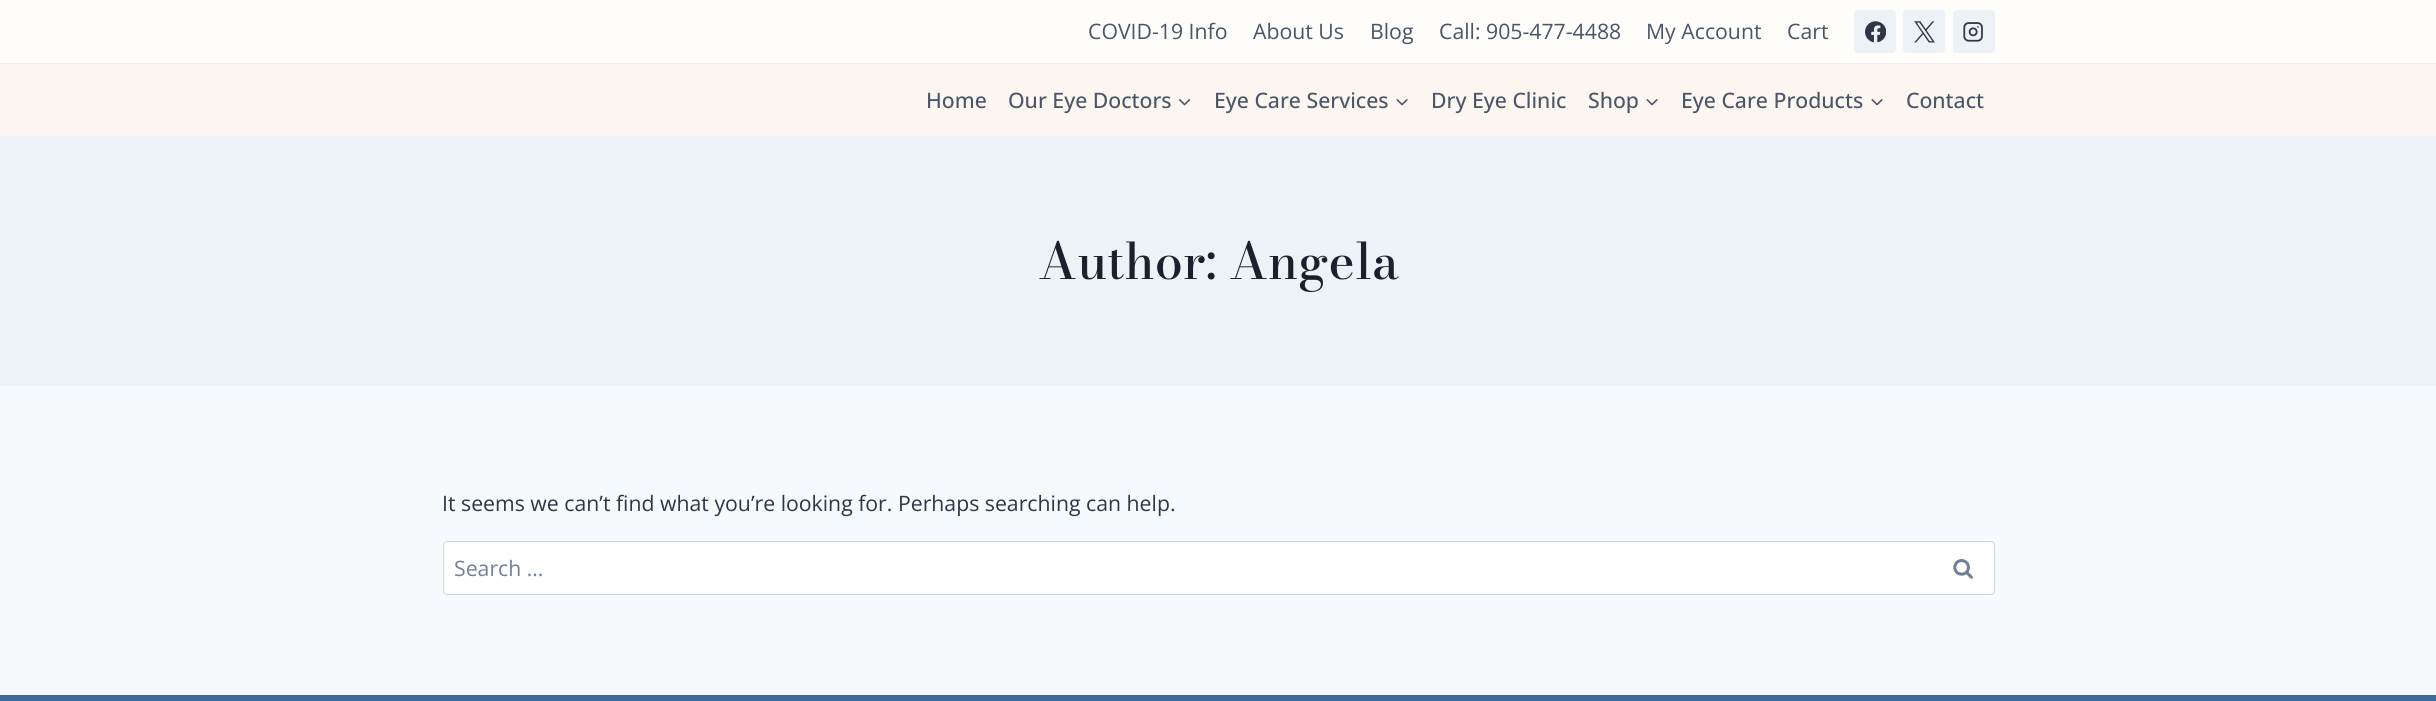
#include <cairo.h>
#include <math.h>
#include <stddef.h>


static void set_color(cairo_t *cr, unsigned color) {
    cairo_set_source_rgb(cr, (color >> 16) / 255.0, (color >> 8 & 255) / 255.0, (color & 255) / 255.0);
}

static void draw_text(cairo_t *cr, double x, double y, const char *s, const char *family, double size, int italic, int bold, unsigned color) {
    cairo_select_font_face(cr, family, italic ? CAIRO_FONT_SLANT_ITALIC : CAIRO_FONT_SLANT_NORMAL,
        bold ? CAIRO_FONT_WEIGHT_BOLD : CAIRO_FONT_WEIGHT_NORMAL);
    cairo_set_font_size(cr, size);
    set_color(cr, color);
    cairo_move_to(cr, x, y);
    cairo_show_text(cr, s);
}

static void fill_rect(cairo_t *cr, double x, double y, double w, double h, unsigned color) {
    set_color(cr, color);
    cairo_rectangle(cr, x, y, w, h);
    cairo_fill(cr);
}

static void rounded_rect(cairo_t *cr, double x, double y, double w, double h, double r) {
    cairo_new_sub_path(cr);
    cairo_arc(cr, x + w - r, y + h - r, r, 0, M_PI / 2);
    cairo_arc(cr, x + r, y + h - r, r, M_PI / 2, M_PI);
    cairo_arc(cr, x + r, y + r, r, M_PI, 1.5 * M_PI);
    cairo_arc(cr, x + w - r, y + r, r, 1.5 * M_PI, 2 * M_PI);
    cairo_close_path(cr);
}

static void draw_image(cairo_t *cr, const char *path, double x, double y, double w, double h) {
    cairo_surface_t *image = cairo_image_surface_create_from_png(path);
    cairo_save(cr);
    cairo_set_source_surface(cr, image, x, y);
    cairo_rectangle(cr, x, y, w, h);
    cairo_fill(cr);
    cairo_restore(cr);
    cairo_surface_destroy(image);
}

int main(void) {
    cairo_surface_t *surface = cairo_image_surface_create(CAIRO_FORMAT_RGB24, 2436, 701);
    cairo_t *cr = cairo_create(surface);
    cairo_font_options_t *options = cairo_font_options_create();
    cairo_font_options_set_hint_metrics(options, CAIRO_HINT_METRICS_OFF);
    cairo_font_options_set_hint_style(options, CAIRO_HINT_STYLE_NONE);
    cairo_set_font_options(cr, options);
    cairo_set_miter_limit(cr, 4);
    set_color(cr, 0xF7FAFC);
    cairo_paint(cr);
    fill_rect(cr, 0, 0, 2436, 63, 0xFEFDF9);
    draw_text(cr, 1088, 39, "COVID-19 Info", "Open Sans", 21.25, 0, 0, 0x4A5568);
    draw_text(cr, 1253, 39, "About Us", "Open Sans", 21.25, 0, 0, 0x4A5568);
    draw_text(cr, 1370, 39, "Blog", "Open Sans", 21.25, 0, 0, 0x4A5568);
    draw_text(cr, 1439, 39, "Call: 905-477-4488", "Open Sans", 21.25, 0, 0, 0x4A5568);
    draw_text(cr, 1646, 39, "My Account", "Open Sans", 21.25, 0, 0, 0x4A5568);
    draw_text(cr, 1787, 39, "Cart", "Open Sans", 21.25, 0, 0, 0x4A5568);
    set_color(cr, 0xEDF2F7);
    rounded_rect(cr, 1854, 10, 42, 43, 4);
    cairo_fill(cr);
    draw_image(cr, "assets/img1.png", 1865, 21, 21, 22);
    rounded_rect(cr, 1903, 10, 42, 43, 4);
    cairo_fill(cr);
    draw_image(cr, "assets/img2.png", 1914, 21, 21, 22);
    rounded_rect(cr, 1953, 10, 42, 43, 4);
    cairo_fill(cr);
    draw_image(cr, "assets/img3.png", 1963, 22, 20, 20);
    fill_rect(cr, 0, 64, 2436, 72, 0xFBF6F0);
    fill_rect(cr, 0, 63, 2436, 1, 0xEDF2F7);
    draw_text(cr, 926, 108, "Home", "Open Sans Medium", 21.25, 0, 0, 0x4A5568);
    draw_text(cr, 1008, 108, "Our Eye Doctors", "Open Sans Medium", 21.25, 0, 0, 0x4A5568);
    draw_image(cr, "assets/img4.png", 1179, 99, 12, 7);
    draw_text(cr, 1214, 108, "Eye Care Services", "Open Sans Medium", 21.25, 0, 0, 0x4A5568);
    draw_image(cr, "assets/img5.png", 1396, 99, 12, 7);
    draw_text(cr, 1431, 108, "Dry Eye Clinic", "Open Sans Medium", 21.25, 0, 0, 0x4A5568);
    draw_text(cr, 1588, 108, "Shop", "Open Sans Medium", 21.25, 0, 0, 0x4A5568);
    draw_image(cr, "assets/img5.png", 1646, 99, 12, 7);
    draw_text(cr, 1681, 108, "Eye Care Products", "Open Sans Medium", 21.25, 0, 0, 0x4A5568);
    draw_image(cr, "assets/img5.png", 1871, 99, 12, 7);
    draw_text(cr, 1906, 108, "Contact", "Open Sans Medium", 21.25, 0, 0, 0x4A5568);
    fill_rect(cr, 0, 136, 2436, 250, 0xEDF2F7);
    draw_text(cr, 1038, 279, "Author: Angela", "Bodoni Moda Medium", 50, 0, 0, 0x1A202C);
    draw_text(cr, 442, 511, "It seems we can’t find what you’re looking for. Perhaps searching can help.", "Open Sans", 21.25, 0, 0, 0x2D3748);
    set_color(cr, 0xFFFFFF);
    rounded_rect(cr, 443.5, 541.5, 1551, 53, 3.5);
    cairo_fill_preserve(cr);
    set_color(cr, 0xCBD5E0);
    cairo_set_line_width(cr, 1);
    cairo_stroke(cr);
    draw_text(cr, 454, 576, "Search …", "Open Sans", 21.25, 0, 0, 0x718096);
    draw_image(cr, "assets/img6.png", 1953, 559, 20, 20);
    fill_rect(cr, 0, 695, 2436, 6, 0x3F6A97);
    cairo_surface_write_to_png(surface, "output.png");
    cairo_font_options_destroy(options);
    cairo_destroy(cr);
    cairo_surface_destroy(surface);
    return 0;
}
